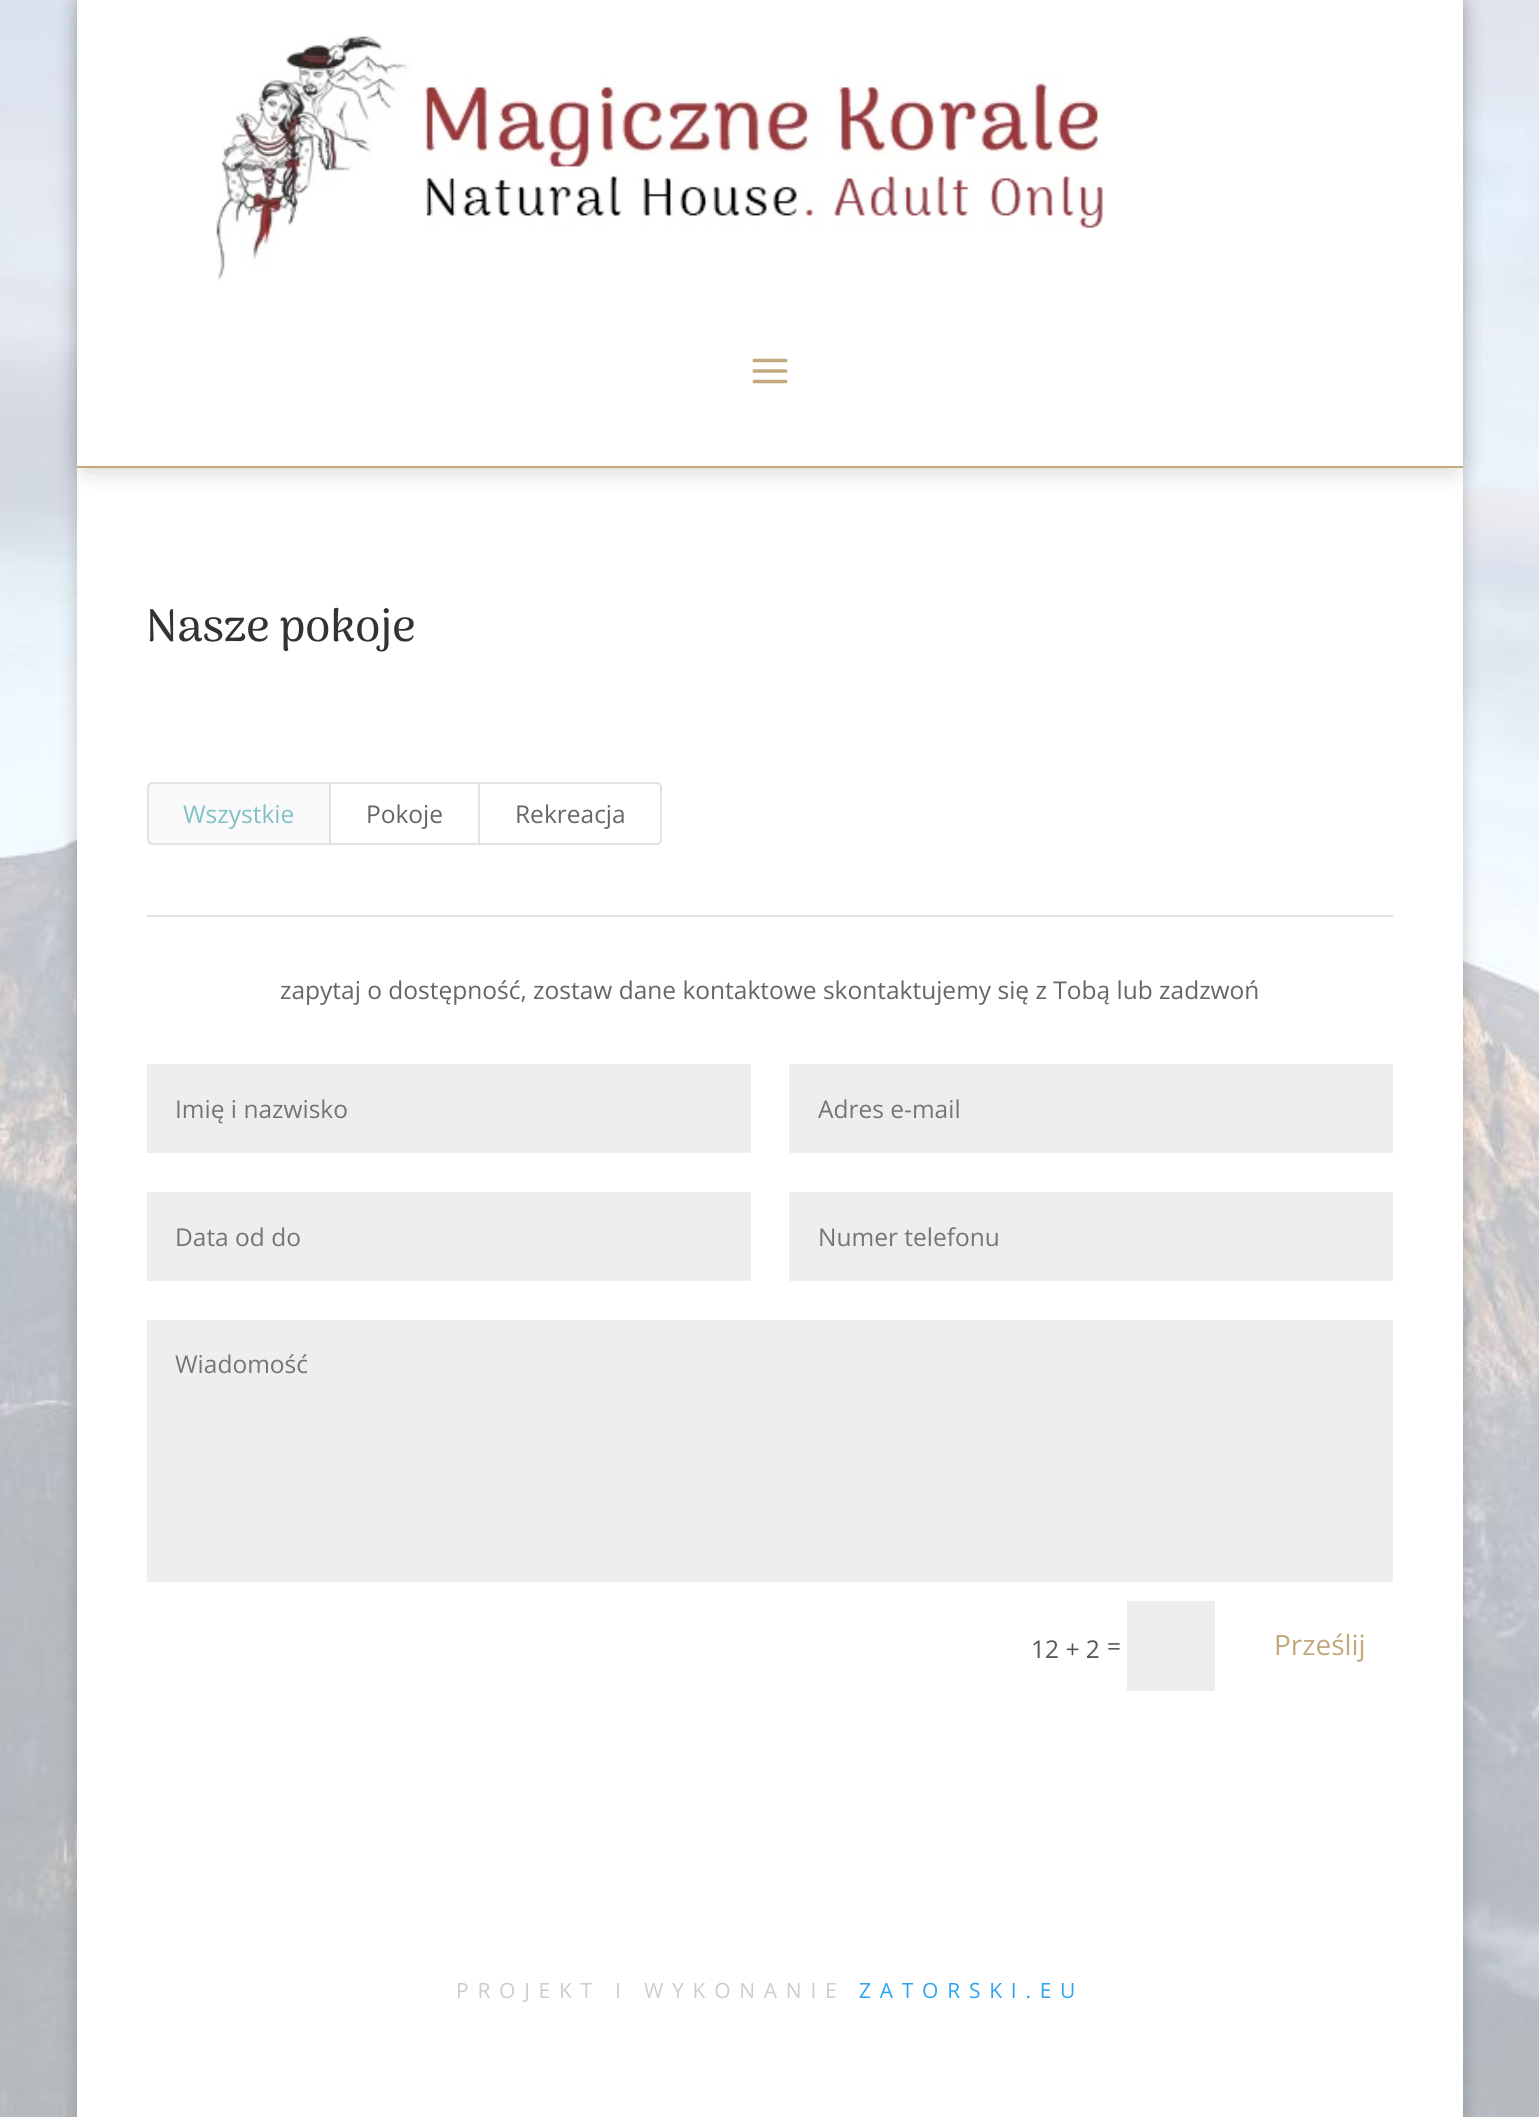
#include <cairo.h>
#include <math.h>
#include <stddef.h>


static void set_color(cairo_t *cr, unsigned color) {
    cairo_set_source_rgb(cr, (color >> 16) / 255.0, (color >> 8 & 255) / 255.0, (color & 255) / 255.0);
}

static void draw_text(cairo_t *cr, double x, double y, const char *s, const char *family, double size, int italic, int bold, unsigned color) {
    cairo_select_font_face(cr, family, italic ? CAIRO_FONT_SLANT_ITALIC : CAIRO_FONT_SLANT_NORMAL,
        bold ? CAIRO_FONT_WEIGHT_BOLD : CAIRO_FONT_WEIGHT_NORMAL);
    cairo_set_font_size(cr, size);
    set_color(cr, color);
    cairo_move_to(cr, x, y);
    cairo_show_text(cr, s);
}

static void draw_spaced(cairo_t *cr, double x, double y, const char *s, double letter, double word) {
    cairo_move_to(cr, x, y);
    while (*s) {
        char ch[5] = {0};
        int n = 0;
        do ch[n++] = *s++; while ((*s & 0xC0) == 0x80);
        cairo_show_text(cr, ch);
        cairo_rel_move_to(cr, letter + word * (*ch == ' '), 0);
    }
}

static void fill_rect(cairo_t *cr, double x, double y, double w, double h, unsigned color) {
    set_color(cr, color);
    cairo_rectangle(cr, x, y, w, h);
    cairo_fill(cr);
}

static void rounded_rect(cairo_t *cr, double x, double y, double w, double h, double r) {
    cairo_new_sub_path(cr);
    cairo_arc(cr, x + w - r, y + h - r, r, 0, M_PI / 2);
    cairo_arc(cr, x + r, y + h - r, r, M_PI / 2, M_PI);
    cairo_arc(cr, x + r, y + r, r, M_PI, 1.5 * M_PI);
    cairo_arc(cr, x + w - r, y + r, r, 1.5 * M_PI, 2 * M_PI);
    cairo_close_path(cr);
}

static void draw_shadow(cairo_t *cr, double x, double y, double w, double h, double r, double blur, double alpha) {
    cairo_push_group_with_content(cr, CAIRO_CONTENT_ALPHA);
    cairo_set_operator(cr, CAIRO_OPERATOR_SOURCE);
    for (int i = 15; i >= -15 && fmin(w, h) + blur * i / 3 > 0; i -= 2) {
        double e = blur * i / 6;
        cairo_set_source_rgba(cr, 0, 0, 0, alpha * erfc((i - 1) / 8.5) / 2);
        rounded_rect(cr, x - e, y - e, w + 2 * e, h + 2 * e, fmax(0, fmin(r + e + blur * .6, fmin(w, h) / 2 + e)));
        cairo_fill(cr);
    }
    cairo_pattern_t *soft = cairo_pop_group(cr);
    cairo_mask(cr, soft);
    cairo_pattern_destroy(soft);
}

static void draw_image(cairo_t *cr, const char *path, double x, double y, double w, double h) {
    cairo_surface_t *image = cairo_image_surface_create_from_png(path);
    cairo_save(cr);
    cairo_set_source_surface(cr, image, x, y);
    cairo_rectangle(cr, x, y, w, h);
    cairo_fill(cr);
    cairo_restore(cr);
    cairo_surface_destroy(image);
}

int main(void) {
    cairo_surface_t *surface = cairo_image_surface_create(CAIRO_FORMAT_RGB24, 1539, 2117);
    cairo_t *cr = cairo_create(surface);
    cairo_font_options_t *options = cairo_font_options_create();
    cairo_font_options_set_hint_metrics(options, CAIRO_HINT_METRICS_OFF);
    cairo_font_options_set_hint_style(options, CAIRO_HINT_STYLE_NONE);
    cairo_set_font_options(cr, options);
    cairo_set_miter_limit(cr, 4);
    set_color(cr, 0xFFFFFF);
    cairo_paint(cr);
    draw_image(cr, "assets/img1.png", 0, 0, 1539, 2117);
    set_color(cr, 0x000000);
    draw_shadow(cr, 77, 0, 1386, 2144, 0, 9, 0.2);
    fill_rect(cr, 77, 468, 1386, 1649, 0xFFFFFF);
    set_color(cr, 0x000000);
    draw_shadow(cr, 88, 16, 1365, 446, 0, 16, 0.3);
    fill_rect(cr, 77, 0, 1386, 466, 0xFFFFFF);
    fill_rect(cr, 77, 466, 1386, 2, 0xC1A87D);
    draw_image(cr, "assets/img2.png", 216, 36, 887, 245);
    draw_image(cr, "assets/img3.png", 752, 358, 36, 26);
    draw_text(cr, 146, 641, "Nasze pokoje", "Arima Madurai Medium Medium", 45.5, 0, 0, 0x333333);
    set_color(cr, 0xF9F9F9);
    cairo_new_path(cr);
    cairo_move_to(cr, 152, 783);
    cairo_line_to(cr, 330, 783);
    cairo_line_to(cr, 330, 844);
    cairo_line_to(cr, 152, 844);
    cairo_curve_to(cr, 150, 844, 148, 842, 148, 840);
    cairo_line_to(cr, 148, 787);
    cairo_curve_to(cr, 148, 785, 150, 783, 152, 783);
    cairo_close_path(cr);
    cairo_fill_preserve(cr);
    set_color(cr, 0xE2E2E2);
    cairo_stroke(cr);
    draw_text(cr, 183, 823, "Wszystkie", "Open Sans", 24.5, 0, 0, 0x82C0C7);
    cairo_rectangle(cr, 330, 783, 149, 61);
    set_color(cr, 0xE2E2E2);
    cairo_stroke(cr);
    draw_text(cr, 366, 823, "Pokoje", "Open Sans", 24.5, 0, 0, 0x666666);
    set_color(cr, 0xFFFFFF);
    cairo_new_path(cr);
    cairo_move_to(cr, 479, 783);
    cairo_line_to(cr, 657, 783);
    cairo_curve_to(cr, 659, 783, 661, 785, 661, 787);
    cairo_line_to(cr, 661, 840);
    cairo_curve_to(cr, 661, 842, 659, 844, 657, 844);
    cairo_line_to(cr, 479, 844);
    cairo_close_path(cr);
    cairo_fill_preserve(cr);
    set_color(cr, 0xE2E2E2);
    cairo_stroke(cr);
    draw_text(cr, 515, 823, "Rekreacja", "Open Sans", 24.5, 0, 0, 0x666666);
    fill_rect(cr, 147, 915, 1246, 2, 0xE2E2E2);
    draw_text(cr, 280, 999, "zapytaj o dostępność, zostaw dane kontaktowe skontaktujemy się z Tobą lub zadzwoń", "Open Sans", 24.5, 0, 0, 0x666666);
    fill_rect(cr, 147, 1064, 604, 89, 0xEEEEEE);
    draw_text(cr, 175, 1118, "Imię i nazwisko", "Open Sans", 24.5, 0, 0, 0x757575);
    fill_rect(cr, 789, 1064, 604, 89, 0xEEEEEE);
    draw_text(cr, 818, 1118, "Adres e-mail", "Open Sans", 24.5, 0, 0, 0x757575);
    fill_rect(cr, 147, 1192, 604, 89, 0xEEEEEE);
    draw_text(cr, 175, 1246, "Data od do", "Open Sans", 24.5, 0, 0, 0x757575);
    fill_rect(cr, 789, 1192, 604, 89, 0xEEEEEE);
    draw_text(cr, 818, 1246, "Numer telefonu", "Open Sans", 24.5, 0, 0, 0x757575);
    fill_rect(cr, 147, 1320, 1246, 262, 0xEEEEEE);
    draw_text(cr, 175, 1373, "Wiadomość", "Open Sans", 24.5, 0, 0, 0x757575);
    draw_text(cr, 1031, 1658, "12 + 2", "Open Sans", 24.5, 0, 0, 0x555555);
    draw_text(cr, 1107, 1655, "=", "Open Sans", 24.5, 0, 0, 0x555555);
    fill_rect(cr, 1127, 1601, 88, 90, 0xEEEEEE);
    draw_text(cr, 1274, 1655, "Prześlij", "Open Sans", 28, 0, 0, 0xC1A87D);
    cairo_set_font_size(cr, 21);
    set_color(cr, 0xCCCCCC);
    draw_spaced(cr, 456, 1998, "PROJEKT I WYKONANIE", 8.75, 0);
    set_color(cr, 0x2EA3F2);
    draw_spaced(cr, 859, 1998, "ZATORSKI.EU", 8.75, 0);
    cairo_surface_write_to_png(surface, "output.png");
    cairo_font_options_destroy(options);
    cairo_destroy(cr);
    cairo_surface_destroy(surface);
    return 0;
}
